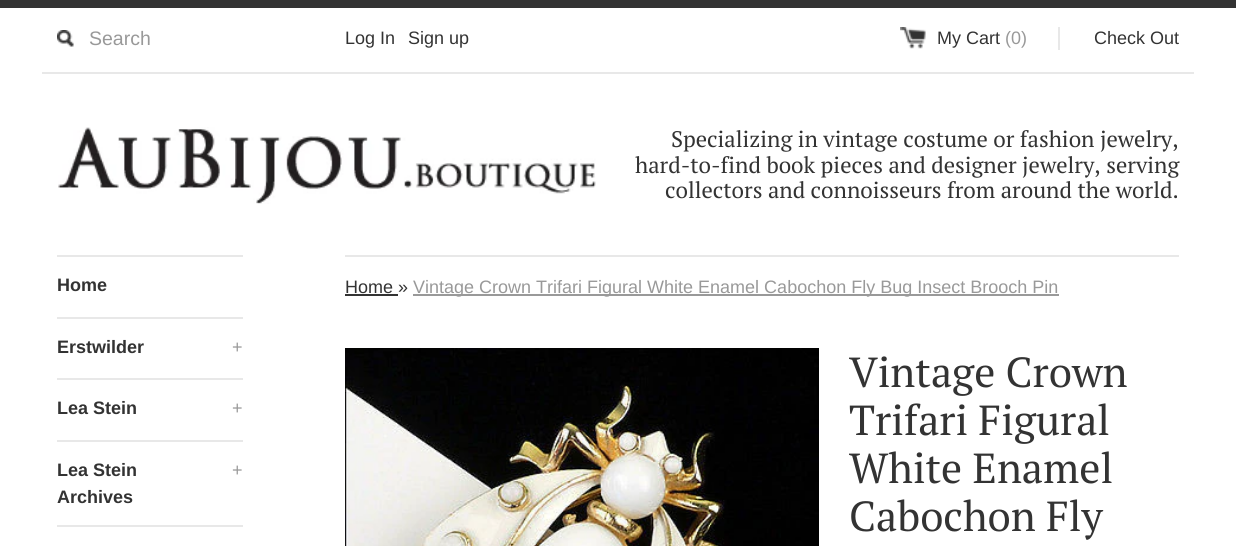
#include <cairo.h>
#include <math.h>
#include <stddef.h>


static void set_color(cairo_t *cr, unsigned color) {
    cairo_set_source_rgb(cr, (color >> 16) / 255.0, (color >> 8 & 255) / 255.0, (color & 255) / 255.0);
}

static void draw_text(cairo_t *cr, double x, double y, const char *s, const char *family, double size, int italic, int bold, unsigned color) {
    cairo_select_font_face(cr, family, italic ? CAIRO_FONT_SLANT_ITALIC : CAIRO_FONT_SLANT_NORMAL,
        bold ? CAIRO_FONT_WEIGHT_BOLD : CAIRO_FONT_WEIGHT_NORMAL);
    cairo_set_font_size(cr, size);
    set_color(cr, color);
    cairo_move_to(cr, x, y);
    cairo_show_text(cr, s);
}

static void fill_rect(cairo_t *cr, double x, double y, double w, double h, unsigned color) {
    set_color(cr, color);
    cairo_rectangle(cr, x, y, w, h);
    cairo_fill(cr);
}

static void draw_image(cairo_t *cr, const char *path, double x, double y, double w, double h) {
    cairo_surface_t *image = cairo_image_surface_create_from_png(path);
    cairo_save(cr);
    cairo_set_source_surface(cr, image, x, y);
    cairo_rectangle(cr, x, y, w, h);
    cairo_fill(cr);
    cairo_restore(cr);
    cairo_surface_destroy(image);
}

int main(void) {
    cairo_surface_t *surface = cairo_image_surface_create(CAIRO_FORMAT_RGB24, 1236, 546);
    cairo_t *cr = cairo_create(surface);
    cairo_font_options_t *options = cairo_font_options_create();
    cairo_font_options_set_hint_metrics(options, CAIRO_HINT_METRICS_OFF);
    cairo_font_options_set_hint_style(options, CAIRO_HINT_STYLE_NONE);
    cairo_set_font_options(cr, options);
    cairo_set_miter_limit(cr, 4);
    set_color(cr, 0xFFFFFF);
    cairo_paint(cr);
    fill_rect(cr, 0, 0, 1236, 8, 0x333333);
    fill_rect(cr, 42, 72, 1152, 2, 0xE8E8E8);
    draw_image(cr, "assets/img1.png", 57, 30, 17, 17);
    draw_text(cr, 89, 45, "Search", "Liberation Sans", 19.5, 0, 0, 0x999999);
    draw_text(cr, 345, 44, "Log In", "Liberation Sans", 18, 0, 0, 0x333333);
    draw_text(cr, 408, 44, "Sign up", "Liberation Sans", 18, 0, 0, 0x333333);
    draw_image(cr, "assets/img2.png", 900, 27, 26, 22);
    draw_text(cr, 937, 44, "My Cart", "Liberation Sans", 18, 0, 0, 0x333333);
    draw_text(cr, 1005, 44, "(0)", "Liberation Sans", 18, 0, 0, 0x999999);
    fill_rect(cr, 1058, 27, 2, 23, 0xE8E8E8);
    draw_text(cr, 1094, 44, "Check Out", "Liberation Sans", 18, 0, 0, 0x333333);
    draw_image(cr, "assets/img3.png", 58, 127, 538, 77);
    draw_text(cr, 671, 147, "Specializing in vintage costume or fashion jewelry,", "PT Serif", 22.5, 0, 0, 0x333333);
    draw_text(cr, 635, 173, "hard-to-find book pieces and designer jewelry, serving", "PT Serif", 22.5, 0, 0, 0x333333);
    draw_text(cr, 665, 198, "collectors and connoisseurs from around the world.", "PT Serif", 22.5, 0, 0, 0x333333);
    fill_rect(cr, 57, 255, 186, 2, 0xE8E8E8);
    draw_text(cr, 57, 291, "Home", "Liberation Sans", 18, 0, 1, 0x333333);
    fill_rect(cr, 57, 317, 186, 2, 0xE8E8E8);
    draw_text(cr, 57, 353, "Erstwilder", "Liberation Sans", 18, 0, 1, 0x333333);
    draw_text(cr, 232, 353, "+", "Liberation Sans", 18, 0, 0, 0x999999);
    fill_rect(cr, 57, 378, 186, 2, 0xE8E8E8);
    draw_text(cr, 57, 414, "Lea Stein", "Liberation Sans", 18, 0, 1, 0x333333);
    draw_text(cr, 232, 414, "+", "Liberation Sans", 18, 0, 0, 0x999999);
    fill_rect(cr, 57, 440, 186, 2, 0xE8E8E8);
    draw_text(cr, 57, 476, "Lea Stein", "Liberation Sans", 18, 0, 1, 0x333333);
    draw_text(cr, 232, 476, "+", "Liberation Sans", 18, 0, 0, 0x999999);
    draw_text(cr, 57, 503, "Archives", "Liberation Sans", 18, 0, 1, 0x333333);
    fill_rect(cr, 57, 525, 186, 2, 0xE8E8E8);
    fill_rect(cr, 345, 255, 834, 2, 0xE8E8E8);
    draw_text(cr, 345, 293, "Home »", "Liberation Sans", 18, 0, 0, 0x333333);
    fill_rect(cr, 345, 294, 53, 2, 0x333333);
    fill_rect(cr, 413, 294, 646, 2, 0x999999);
    draw_text(cr, 413, 293, "Vintage Crown Trifari Figural White Enamel Cabochon Fly Bug Insect Brooch Pin", "Liberation Sans", 18, 0, 0, 0x999999);
    draw_image(cr, "assets/img4.png", 345, 348, 474, 198);
    draw_text(cr, 849, 387, "Vintage Crown", "PT Serif", 42, 0, 0, 0x333333);
    draw_text(cr, 849, 435, "Trifari Figural", "PT Serif", 42, 0, 0, 0x333333);
    draw_text(cr, 849, 483, "White Enamel", "PT Serif", 42, 0, 0, 0x333333);
    draw_text(cr, 849, 531, "Cabochon Fly", "PT Serif", 42, 0, 0, 0x333333);
    cairo_surface_write_to_png(surface, "output.png");
    cairo_font_options_destroy(options);
    cairo_destroy(cr);
    cairo_surface_destroy(surface);
    return 0;
}
